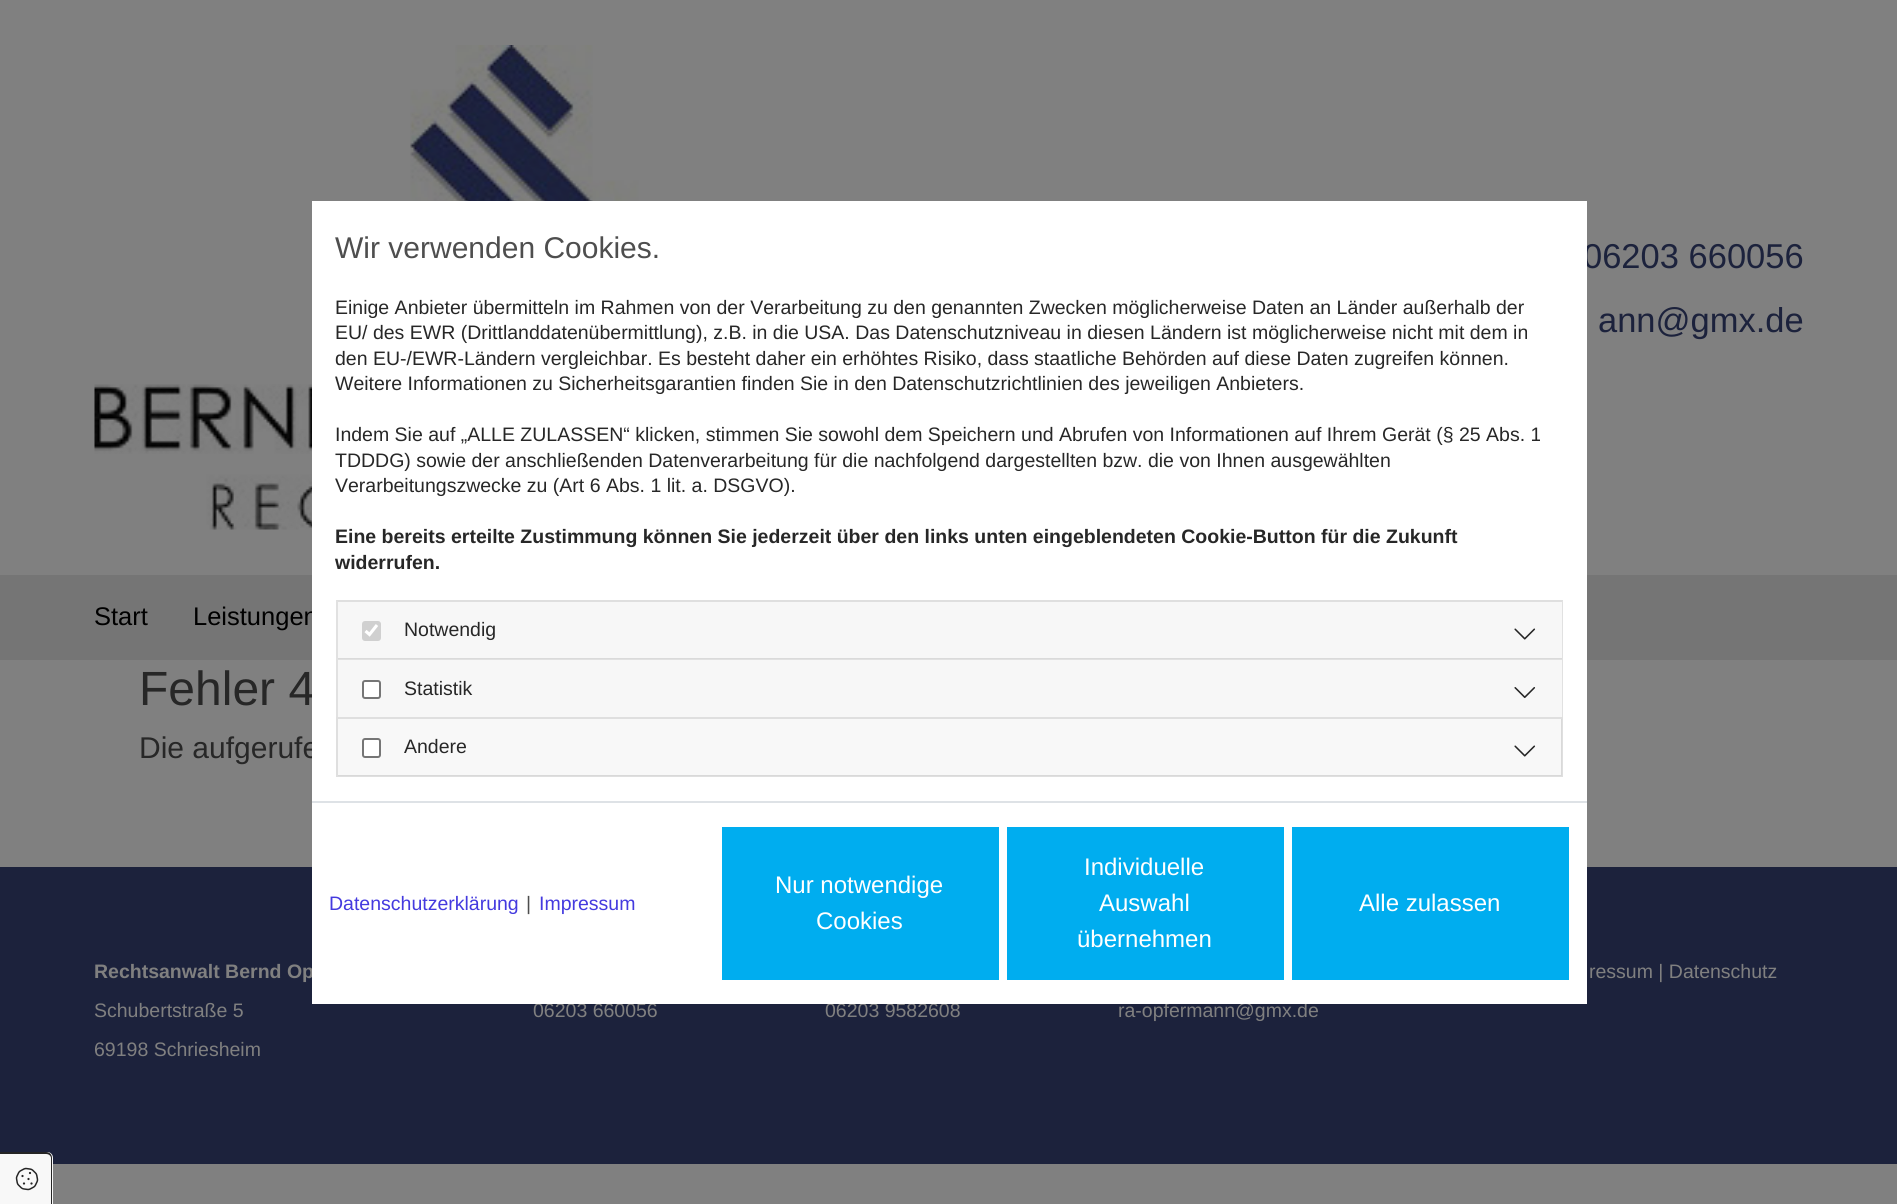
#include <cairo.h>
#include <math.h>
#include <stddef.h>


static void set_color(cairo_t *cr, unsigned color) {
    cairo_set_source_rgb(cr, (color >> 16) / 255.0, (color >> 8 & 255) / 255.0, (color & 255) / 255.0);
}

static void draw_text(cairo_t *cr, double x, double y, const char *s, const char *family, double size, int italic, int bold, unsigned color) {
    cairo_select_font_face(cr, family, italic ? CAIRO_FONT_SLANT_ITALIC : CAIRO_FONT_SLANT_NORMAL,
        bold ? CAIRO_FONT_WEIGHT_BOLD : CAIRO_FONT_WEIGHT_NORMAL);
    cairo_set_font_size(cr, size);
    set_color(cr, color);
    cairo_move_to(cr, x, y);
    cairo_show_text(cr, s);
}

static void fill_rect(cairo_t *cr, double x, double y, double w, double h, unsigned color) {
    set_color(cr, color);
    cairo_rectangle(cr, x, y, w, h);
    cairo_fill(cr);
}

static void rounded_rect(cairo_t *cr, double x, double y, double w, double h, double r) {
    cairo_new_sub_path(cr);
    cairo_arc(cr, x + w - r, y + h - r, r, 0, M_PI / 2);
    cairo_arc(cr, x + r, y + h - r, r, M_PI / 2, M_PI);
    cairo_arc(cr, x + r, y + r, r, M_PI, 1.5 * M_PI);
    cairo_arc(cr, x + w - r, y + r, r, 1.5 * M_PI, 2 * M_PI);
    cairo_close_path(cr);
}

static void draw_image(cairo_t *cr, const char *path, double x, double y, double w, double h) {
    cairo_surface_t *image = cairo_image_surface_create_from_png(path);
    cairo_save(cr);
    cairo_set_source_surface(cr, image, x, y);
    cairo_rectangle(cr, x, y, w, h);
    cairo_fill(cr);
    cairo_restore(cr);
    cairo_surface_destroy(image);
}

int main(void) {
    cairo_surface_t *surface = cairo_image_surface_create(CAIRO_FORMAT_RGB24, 1897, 1204);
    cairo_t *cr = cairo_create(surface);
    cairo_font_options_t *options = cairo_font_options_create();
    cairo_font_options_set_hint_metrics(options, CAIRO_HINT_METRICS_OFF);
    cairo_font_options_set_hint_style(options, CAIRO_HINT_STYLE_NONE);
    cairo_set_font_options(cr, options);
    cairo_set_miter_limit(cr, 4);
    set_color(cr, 0x808080);
    cairo_paint(cr);
    draw_image(cr, "assets/img4.png", 94, 45, 832, 485);
    draw_text(cr, 1583, 268, "06203 660056", "Liberation Sans", 34.5, 0, 0, 0x1C223C);
    fill_rect(cr, 0, 575, 1897, 85, 0x757575);
    draw_text(cr, 193, 625, "Leistungen", "Liberation Sans", 25.5, 0, 0, 0x000000);
    draw_text(cr, 139, 705, "Fehler 4", "Liberation Sans", 48, 0, 0, 0x272727);
    draw_text(cr, 139, 758, "Die aufgerufe", "Liberation Sans", 30, 0, 0, 0x272727);
    fill_rect(cr, 0, 867, 1897, 297, 0x1C223C);
    draw_text(cr, 94, 978, "Rechtsanwalt Bernd Op", "Liberation Sans", 19.5, 0, 1, 0x808080);
    draw_text(cr, 533, 1017, "06203 660056", "Liberation Sans", 19.5, 0, 0, 0x808080);
    draw_text(cr, 825, 1017, "06203 9582608", "Liberation Sans", 19.5, 0, 0, 0x808080);
    draw_text(cr, 1118, 1017, "ra-opfermann@gmx.de", "Liberation Sans", 19.5, 0, 0, 0x808080);
    fill_rect(cr, 312, 201, 1275, 803, 0xFFFFFF);
    draw_text(cr, 335, 258, "Wir verwenden Cookies.", "Liberation Sans", 30, 0, 0, 0x4E4E4E);
    draw_text(cr, 335, 314, "Einige Anbieter übermitteln im Rahmen von der Verarbeitung zu den genannten Zwecken möglicherweise Daten an Länder außerhalb der", "Liberation Sans", 19.5, 0, 0, 0x272727);
    draw_text(cr, 335, 339, "EU/ des EWR (Drittlanddatenübermittlung), z.B. in die USA. Das Datenschutzniveau in diesen Ländern ist möglicherweise nicht mit dem in", "Liberation Sans", 19.5, 0, 0, 0x272727);
    draw_text(cr, 335, 365, "den EU-/EWR-Ländern vergleichbar. Es besteht daher ein erhöhtes Risiko, dass staatliche Behörden auf diese Daten zugreifen können.", "Liberation Sans", 19.5, 0, 0, 0x272727);
    draw_text(cr, 335, 390, "Weitere Informationen zu Sicherheitsgarantien finden Sie in den Datenschutzrichtlinien des jeweiligen Anbieters.", "Liberation Sans", 19.5, 0, 0, 0x272727);
    draw_text(cr, 335, 441, "Indem Sie auf „ALLE ZULASSEN“ klicken, stimmen Sie sowohl dem Speichern und Abrufen von Informationen auf Ihrem Gerät (§ 25 Abs. 1", "Liberation Sans", 19.5, 0, 0, 0x272727);
    draw_text(cr, 335, 467, "TDDDG) sowie der anschließenden Datenverarbeitung für die nachfolgend dargestellten bzw. die von Ihnen ausgewählten", "Liberation Sans", 19.5, 0, 0, 0x272727);
    draw_text(cr, 335, 492, "Verarbeitungszwecke zu (Art 6 Abs. 1 lit. a. DSGVO).", "Liberation Sans", 19.5, 0, 0, 0x272727);
    draw_text(cr, 335, 543, "Eine bereits erteilte Zustimmung können Sie jederzeit über den links unten eingeblendeten Cookie-Button für die Zukunft", "Liberation Sans", 19.5, 0, 1, 0x272727);
    draw_text(cr, 335, 569, "widerrufen.", "Liberation Sans", 19.5, 0, 1, 0x272727);
    set_color(cr, 0xDFDFDF);
    cairo_new_path(cr);
    cairo_move_to(cr, 336, 600);
    cairo_line_to(cr, 1563, 600);
    cairo_line_to(cr, 1562, 602);
    cairo_line_to(cr, 338, 602);
    cairo_close_path(cr);
    cairo_fill(cr);
    cairo_set_source_rgba(cr, 0, 0, 0, 0.12);
    cairo_new_path(cr);
    cairo_move_to(cr, 1563, 600);
    cairo_line_to(cr, 1563, 658);
    cairo_line_to(cr, 1562, 658);
    cairo_line_to(cr, 1562, 602);
    cairo_close_path(cr);
    cairo_fill(cr);
    cairo_new_path(cr);
    cairo_move_to(cr, 336, 658);
    cairo_line_to(cr, 336, 600);
    cairo_line_to(cr, 338, 602);
    cairo_line_to(cr, 338, 658);
    cairo_close_path(cr);
    cairo_fill(cr);
    fill_rect(cr, 338, 602, 1224, 57, 0xF7F7F7);
    set_color(cr, 0xD0D0D0);
    rounded_rect(cr, 362, 621, 19, 20, 3);
    cairo_fill(cr);
    cairo_new_path(cr);
    cairo_move_to(cr, 365.5, 631);
    cairo_line_to(cr, 369.5, 634.5);
    cairo_line_to(cr, 377, 625);
    set_color(cr, 0xFFFFFF);
    cairo_set_line_width(cr, 3.1);
    cairo_stroke(cr);
    draw_text(cr, 404, 636, "Notwendig", "Liberation Sans", 19.5, 0, 0, 0x272727);
    draw_image(cr, "assets/img1.png", 1514, 628, 22, 12);
    cairo_set_source_rgba(cr, 0, 0, 0, 0.12);
    cairo_new_path(cr);
    cairo_move_to(cr, 336, 658);
    cairo_line_to(cr, 1563, 658);
    cairo_line_to(cr, 1562, 660);
    cairo_line_to(cr, 338, 660);
    cairo_close_path(cr);
    cairo_fill(cr);
    cairo_new_path(cr);
    cairo_move_to(cr, 1563, 658);
    cairo_line_to(cr, 1563, 717);
    cairo_line_to(cr, 1562, 717);
    cairo_line_to(cr, 1562, 660);
    cairo_close_path(cr);
    cairo_fill(cr);
    cairo_new_path(cr);
    cairo_move_to(cr, 336, 717);
    cairo_line_to(cr, 336, 658);
    cairo_line_to(cr, 338, 660);
    cairo_line_to(cr, 338, 717);
    cairo_close_path(cr);
    cairo_fill(cr);
    fill_rect(cr, 338, 660, 1224, 57, 0xF7F7F7);
    set_color(cr, 0xFFFFFF);
    rounded_rect(cr, 363, 681, 17, 17, 2);
    cairo_fill_preserve(cr);
    set_color(cr, 0x767676);
    cairo_set_line_width(cr, 2);
    cairo_stroke(cr);
    draw_text(cr, 404, 695, "Statistik", "Liberation Sans", 19.5, 0, 0, 0x272727);
    draw_image(cr, "assets/img2.png", 1514, 687, 22, 12);
    cairo_rectangle(cr, 337, 718, 1225, 58);
    set_color(cr, 0xDFDFDF);
    cairo_stroke(cr);
    cairo_set_source_rgba(cr, 0, 0, 0, 0.03);
    cairo_rectangle(cr, 338, 719, 1224, 57);
    cairo_fill(cr);
    set_color(cr, 0xFFFFFF);
    rounded_rect(cr, 363, 739, 17, 18, 2);
    cairo_fill_preserve(cr);
    set_color(cr, 0x767676);
    cairo_stroke(cr);
    draw_text(cr, 404, 753, "Andere", "Liberation Sans", 19.5, 0, 0, 0x272727);
    draw_image(cr, "assets/img3.png", 1514, 745, 22, 12);
    fill_rect(cr, 312, 801, 1275, 2, 0xDEE2E6);
    draw_text(cr, 329, 910, "Datenschutzerklärung", "Liberation Sans", 19.5, 0, 0, 0x443ADF);
    draw_text(cr, 526, 910, "|", "Liberation Sans", 19.5, 0, 0, 0x4E4E4E);
    draw_text(cr, 539, 910, "Impressum", "Liberation Sans", 19.5, 0, 0, 0x443ADF);
    fill_rect(cr, 722, 827, 277, 153, 0x00ADEF);
    draw_text(cr, 775, 893, "Nur notwendige", "Liberation Sans", 24, 0, 0, 0xFFFFFF);
    draw_text(cr, 816, 929, "Cookies", "Liberation Sans", 24, 0, 0, 0xFFFFFF);
    fill_rect(cr, 1007, 827, 277, 153, 0x00ADEF);
    draw_text(cr, 1084, 875, "Individuelle", "Liberation Sans", 24, 0, 0, 0xFFFFFF);
    draw_text(cr, 1099, 911, "Auswahl", "Liberation Sans", 24, 0, 0, 0xFFFFFF);
    draw_text(cr, 1077, 947, "übernehmen", "Liberation Sans", 24, 0, 0, 0xFFFFFF);
    fill_rect(cr, 1292, 827, 277, 153, 0x00ADEF);
    draw_text(cr, 1359, 911, "Alle zulassen", "Liberation Sans", 24, 0, 0, 0xFFFFFF);
    draw_text(cr, 1598, 332, "ann@gmx.de", "Liberation Sans", 34.5, 0, 0, 0x1C223C);
    draw_text(cr, 94, 625, "Start", "Liberation Sans", 25.5, 0, 0, 0x000000);
    draw_text(cr, 94, 1017, "Schubertstraße 5", "Liberation Sans", 19.5, 0, 0, 0x808080);
    draw_text(cr, 94, 1056, "69198 Schriesheim", "Liberation Sans", 19.5, 0, 0, 0x808080);
    draw_text(cr, 1589, 978, "ressum | Datenschutz", "Liberation Sans", 19.5, 0, 0, 0x808080);
    set_color(cr, 0xF8F8F8);
    cairo_new_path(cr);
    cairo_move_to(cr, 0, 1152);
    cairo_line_to(cr, 47, 1152);
    cairo_curve_to(cr, 50.5, 1152, 53, 1154.5, 53, 1158);
    cairo_line_to(cr, 53, 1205);
    cairo_line_to(cr, 0, 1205);
    cairo_close_path(cr);
    cairo_fill(cr);
    set_color(cr, 0x252525);
    cairo_set_fill_rule(cr, CAIRO_FILL_RULE_EVEN_ODD);
    cairo_new_path(cr);
    cairo_move_to(cr, 0, 1152);
    cairo_line_to(cr, 46, 1152);
    cairo_curve_to(cr, 50, 1152, 52, 1155, 52, 1158);
    cairo_line_to(cr, 52, 1204);
    cairo_line_to(cr, 0, 1204);
    cairo_close_path(cr);
    cairo_move_to(cr, 0, 1154);
    cairo_line_to(cr, 46, 1154);
    cairo_curve_to(cr, 49, 1154, 51, 1156, 51, 1158);
    cairo_line_to(cr, 51, 1204);
    cairo_line_to(cr, 0, 1204);
    cairo_close_path(cr);
    cairo_fill(cr);
    draw_image(cr, "assets/img5.png", 15, 1167, 24, 24);
    cairo_surface_write_to_png(surface, "output.png");
    cairo_font_options_destroy(options);
    cairo_destroy(cr);
    cairo_surface_destroy(surface);
    return 0;
}
